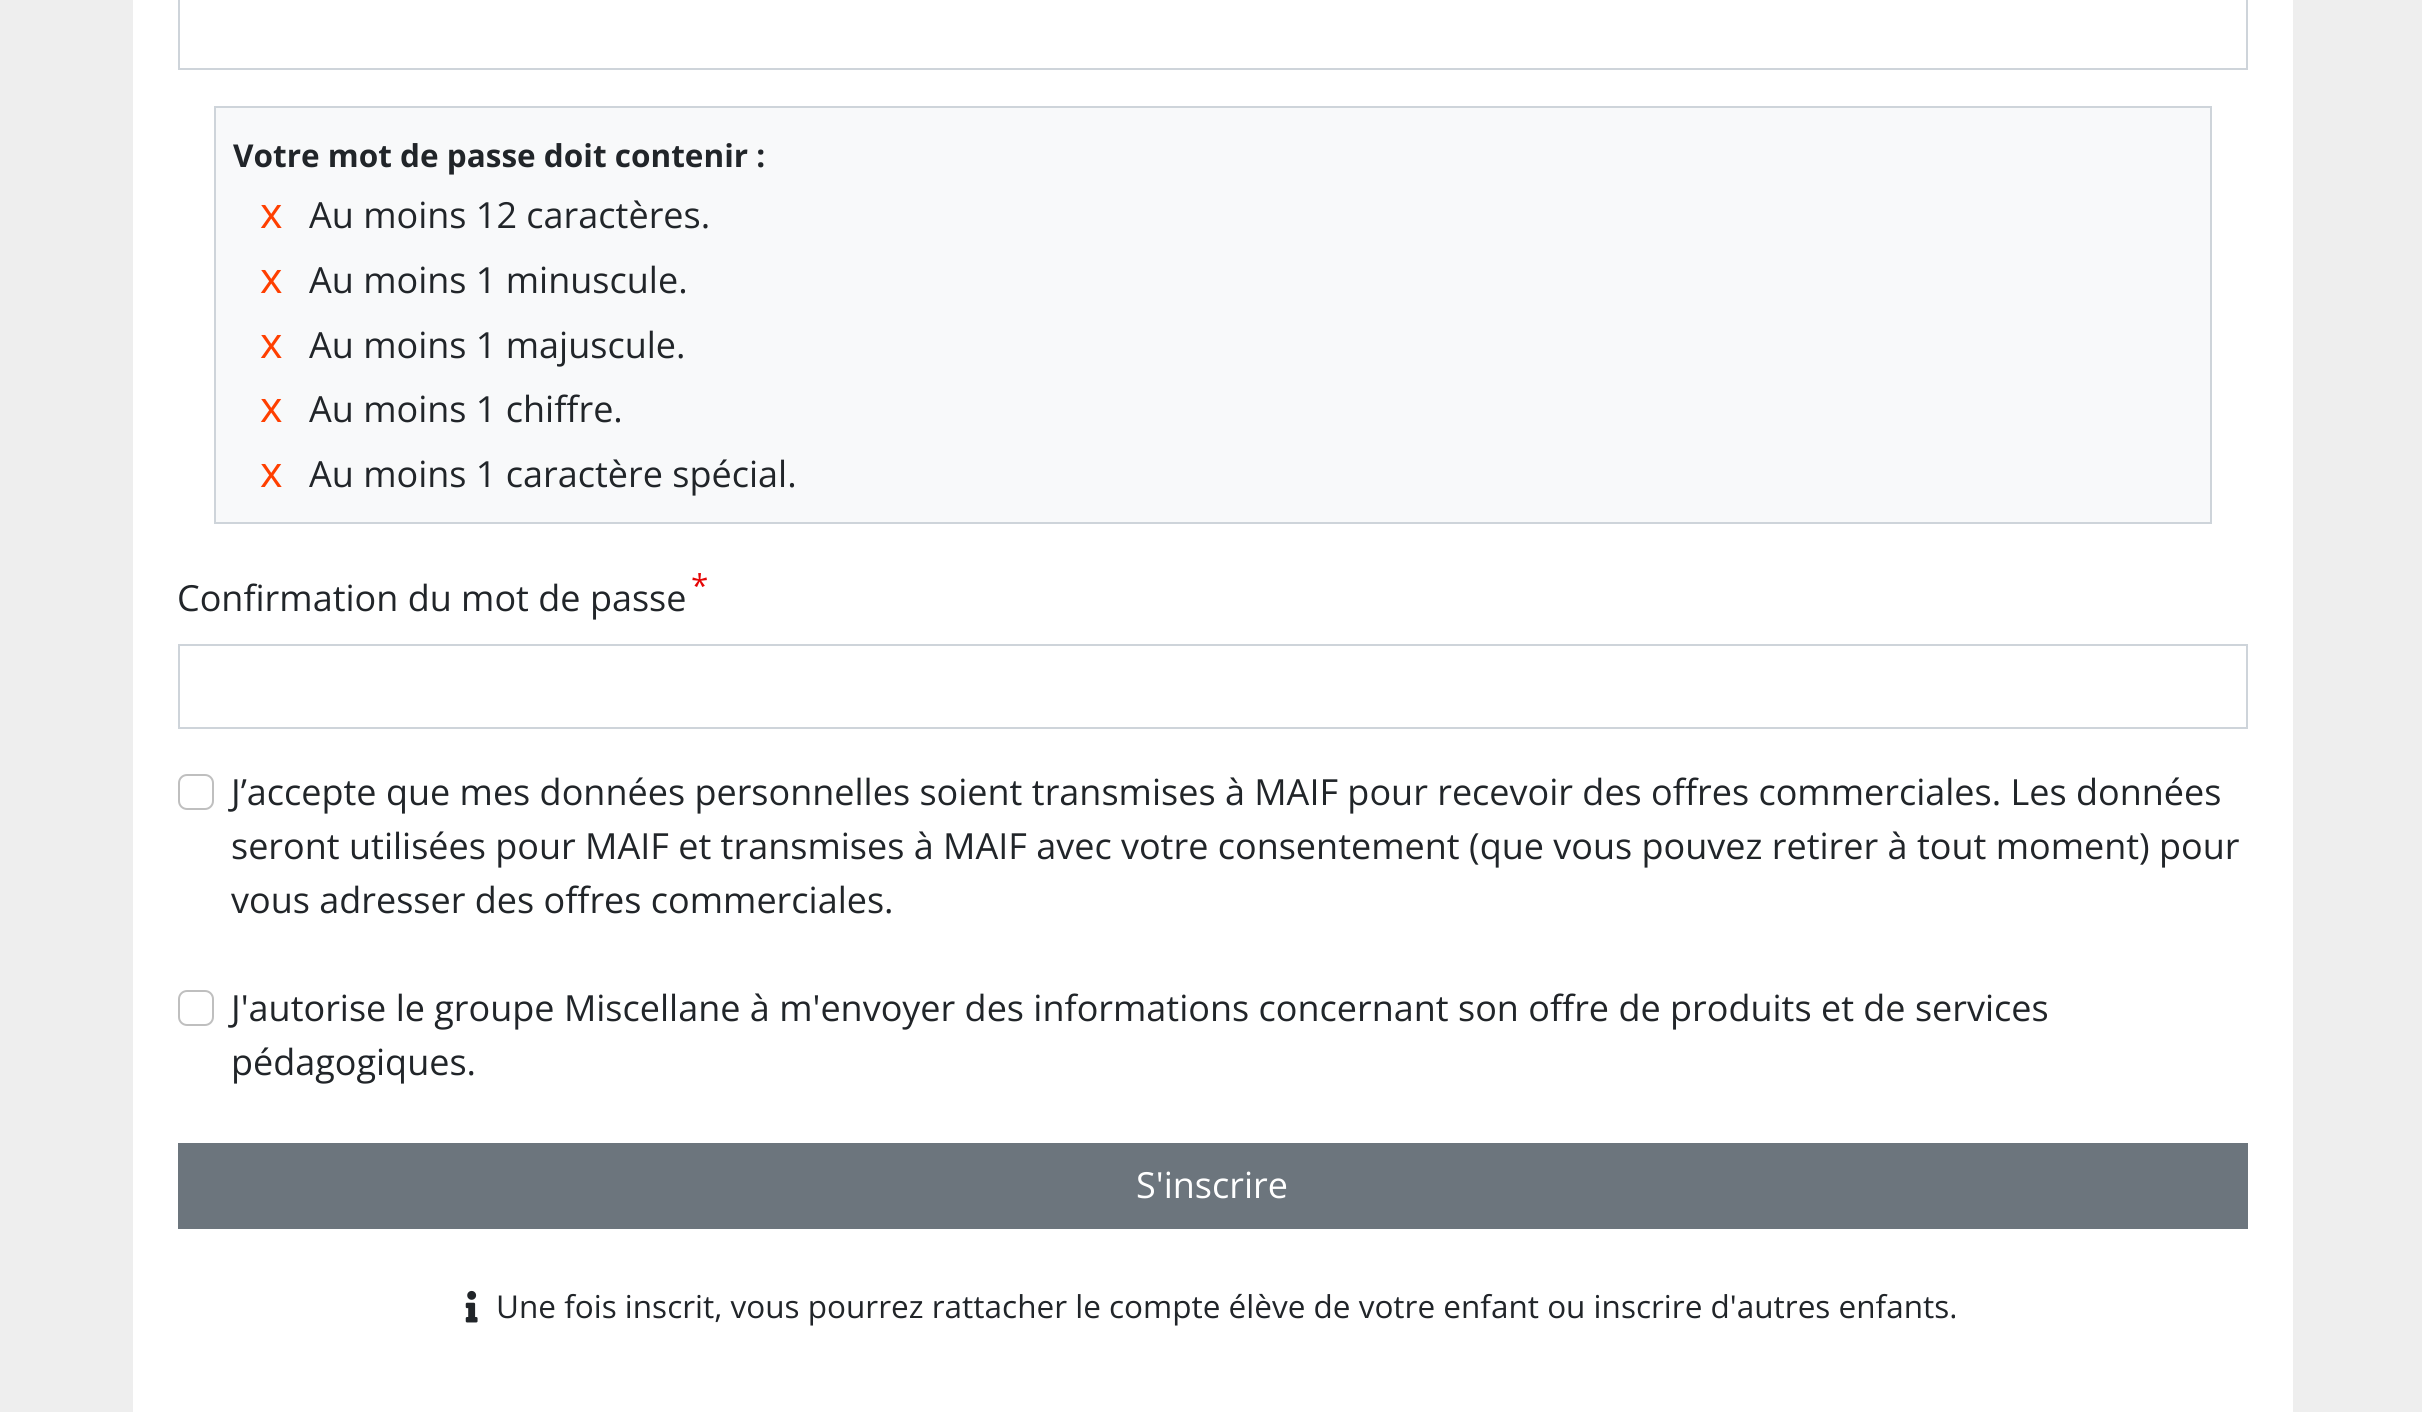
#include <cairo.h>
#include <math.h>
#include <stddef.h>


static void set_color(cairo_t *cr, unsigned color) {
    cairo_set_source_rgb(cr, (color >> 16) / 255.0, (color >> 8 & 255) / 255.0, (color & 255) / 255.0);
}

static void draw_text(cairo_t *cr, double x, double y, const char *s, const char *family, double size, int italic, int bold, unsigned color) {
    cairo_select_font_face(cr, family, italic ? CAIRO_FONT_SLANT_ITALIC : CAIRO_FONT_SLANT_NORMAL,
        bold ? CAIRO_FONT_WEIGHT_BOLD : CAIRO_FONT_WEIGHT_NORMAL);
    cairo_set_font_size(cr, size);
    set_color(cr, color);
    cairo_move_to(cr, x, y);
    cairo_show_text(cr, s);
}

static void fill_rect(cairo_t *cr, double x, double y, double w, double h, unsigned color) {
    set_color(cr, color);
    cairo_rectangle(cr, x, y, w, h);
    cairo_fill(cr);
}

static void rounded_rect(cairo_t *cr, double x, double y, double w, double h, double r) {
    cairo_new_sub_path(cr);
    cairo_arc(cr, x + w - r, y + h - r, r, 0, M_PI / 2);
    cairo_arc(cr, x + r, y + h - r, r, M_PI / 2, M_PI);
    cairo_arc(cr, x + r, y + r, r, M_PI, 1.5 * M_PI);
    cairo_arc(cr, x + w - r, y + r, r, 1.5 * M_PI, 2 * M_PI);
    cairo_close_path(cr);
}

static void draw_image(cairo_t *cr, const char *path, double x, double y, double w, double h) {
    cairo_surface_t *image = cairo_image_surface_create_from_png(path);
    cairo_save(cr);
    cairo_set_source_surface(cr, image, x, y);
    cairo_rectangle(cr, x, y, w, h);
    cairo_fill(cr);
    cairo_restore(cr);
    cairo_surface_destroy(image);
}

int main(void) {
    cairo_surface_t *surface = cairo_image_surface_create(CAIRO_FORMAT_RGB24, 2422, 1412);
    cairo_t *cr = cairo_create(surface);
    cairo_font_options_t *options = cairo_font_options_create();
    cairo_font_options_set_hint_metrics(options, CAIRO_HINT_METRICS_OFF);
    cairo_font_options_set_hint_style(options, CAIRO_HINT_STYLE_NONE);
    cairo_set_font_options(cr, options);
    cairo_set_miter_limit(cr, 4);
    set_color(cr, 0xEEEEEE);
    cairo_paint(cr);
    fill_rect(cr, 133, 0, 2160, 1412, 0xFFFFFF);
    cairo_rectangle(cr, 179, -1, 2068, 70);
    set_color(cr, 0xCED4DA);
    cairo_stroke(cr);
    set_color(cr, 0xF8F9FA);
    cairo_rectangle(cr, 215, 107, 1996, 416);
    cairo_fill_preserve(cr);
    set_color(cr, 0xCED4DA);
    cairo_stroke(cr);
    draw_text(cr, 233, 167, "Votre mot de passe doit contenir :", "Open Sans", 31.5, 0, 1, 0x212529);
    draw_text(cr, 260, 228, "x", "Open Sans", 43, 0, 0, 0xFF3F00);
    draw_text(cr, 309, 228, "Au moins 12 caractères.", "Open Sans", 36, 0, 0, 0x212529);
    draw_text(cr, 260, 293, "x", "Open Sans", 43, 0, 0, 0xFF3F00);
    draw_text(cr, 309, 293, "Au moins 1 minuscule.", "Open Sans", 36, 0, 0, 0x212529);
    draw_text(cr, 260, 358, "x", "Open Sans", 43, 0, 0, 0xFF3F00);
    draw_text(cr, 309, 358, "Au moins 1 majuscule.", "Open Sans", 36, 0, 0, 0x212529);
    draw_text(cr, 260, 422, "x", "Open Sans", 43, 0, 0, 0xFF3F00);
    draw_text(cr, 309, 422, "Au moins 1 chiffre.", "Open Sans", 36, 0, 0, 0x212529);
    draw_text(cr, 260, 487, "x", "Open Sans", 43, 0, 0, 0xFF3F00);
    draw_text(cr, 309, 487, "Au moins 1 caractère spécial.", "Open Sans", 36, 0, 0, 0x212529);
    draw_text(cr, 691, 597, "*", "Open Sans", 31.5, 0, 0, 0xE50505);
    draw_text(cr, 177, 611, "Confirmation du mot de passe", "Open Sans", 36, 0, 0, 0x212529);
    cairo_rectangle(cr, 179, 645, 2068, 83);
    set_color(cr, 0xCED4DA);
    cairo_stroke(cr);
    rounded_rect(cr, 179, 775, 34, 34, 8);
    set_color(cr, 0xBFBFBF);
    cairo_stroke(cr);
    draw_text(cr, 231, 805, "J’accepte que mes données personnelles soient transmises à MAIF pour recevoir des offres commerciales. Les données", "Open Sans", 36, 0, 0, 0x212529);
    draw_text(cr, 231, 859, "seront utilisées pour MAIF et transmises à MAIF avec votre consentement (que vous pouvez retirer à tout moment) pour", "Open Sans", 36, 0, 0, 0x212529);
    draw_text(cr, 231, 913, "vous adresser des offres commerciales.", "Open Sans", 36, 0, 0, 0x212529);
    rounded_rect(cr, 179, 991, 34, 34, 8);
    set_color(cr, 0xBFBFBF);
    cairo_stroke(cr);
    draw_text(cr, 231, 1021, "J'autorise le groupe Miscellane à m'envoyer des informations concernant son offre de produits et de services", "Open Sans", 36, 0, 0, 0x212529);
    draw_text(cr, 231, 1075, "pédagogiques.", "Open Sans", 36, 0, 0, 0x212529);
    fill_rect(cr, 178, 1143, 2070, 86, 0x6C757D);
    draw_text(cr, 1136, 1198, "S'inscrire", "Open Sans", 36, 0, 0, 0xFFFFFF);
    draw_image(cr, "assets/img1.png", 465, 1290, 13, 33);
    draw_text(cr, 496, 1318, "Une fois inscrit, vous pourrez rattacher le compte élève de votre enfant ou inscrire d'autres enfants.", "Open Sans", 31.5, 0, 0, 0x212529);
    cairo_surface_write_to_png(surface, "output.png");
    cairo_font_options_destroy(options);
    cairo_destroy(cr);
    cairo_surface_destroy(surface);
    return 0;
}
